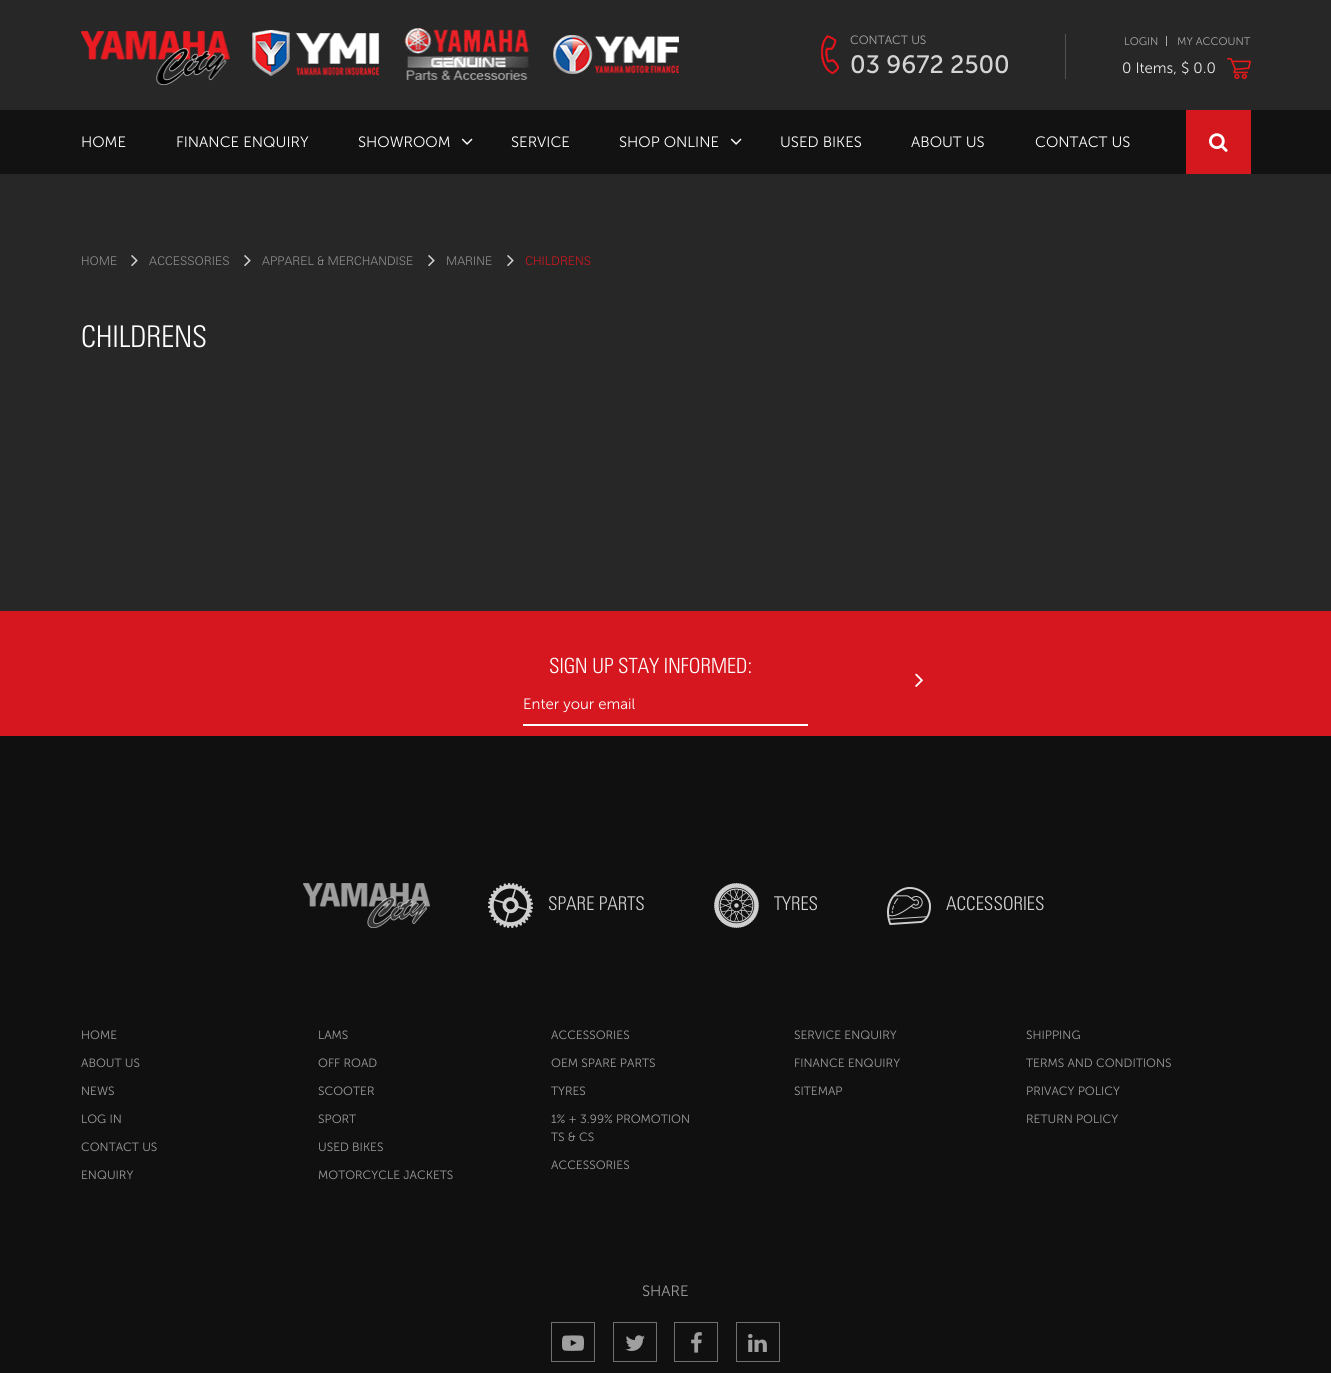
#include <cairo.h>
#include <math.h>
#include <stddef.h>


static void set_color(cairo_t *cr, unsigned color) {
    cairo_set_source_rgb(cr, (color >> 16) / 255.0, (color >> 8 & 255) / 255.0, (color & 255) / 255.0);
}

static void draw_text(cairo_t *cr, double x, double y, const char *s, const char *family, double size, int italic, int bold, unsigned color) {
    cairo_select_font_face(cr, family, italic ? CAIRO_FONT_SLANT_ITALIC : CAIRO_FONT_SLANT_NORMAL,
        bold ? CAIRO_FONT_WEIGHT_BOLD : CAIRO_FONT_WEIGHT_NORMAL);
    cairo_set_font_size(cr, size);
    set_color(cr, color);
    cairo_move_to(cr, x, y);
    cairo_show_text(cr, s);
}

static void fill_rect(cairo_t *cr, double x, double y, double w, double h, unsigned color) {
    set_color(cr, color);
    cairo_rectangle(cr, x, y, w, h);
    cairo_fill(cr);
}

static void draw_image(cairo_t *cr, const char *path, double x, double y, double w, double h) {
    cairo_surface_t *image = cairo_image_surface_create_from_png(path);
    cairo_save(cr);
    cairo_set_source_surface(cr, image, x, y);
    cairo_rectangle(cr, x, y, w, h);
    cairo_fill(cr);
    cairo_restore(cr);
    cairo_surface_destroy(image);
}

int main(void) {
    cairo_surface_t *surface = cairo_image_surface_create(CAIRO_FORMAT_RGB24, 1331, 1373);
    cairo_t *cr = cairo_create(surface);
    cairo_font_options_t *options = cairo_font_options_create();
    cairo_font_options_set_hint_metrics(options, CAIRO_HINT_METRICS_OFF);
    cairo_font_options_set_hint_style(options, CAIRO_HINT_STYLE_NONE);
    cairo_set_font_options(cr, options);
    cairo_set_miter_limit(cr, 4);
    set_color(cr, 0x272727);
    cairo_paint(cr);
    fill_rect(cr, 0, 110, 1331, 64, 0x121212);
    draw_image(cr, "assets/img1.png", 81, 28, 598, 57);
    draw_image(cr, "assets/img2.png", 821, 35, 19, 40);
    draw_text(cr, 850, 44, "CONTACT US", "Museo Sans Light", 12, 0, 0, 0xA9A9A9);
    draw_text(cr, 850, 73, "03 9672 2500", "Museo Sans", 25, 0, 0, 0xD4D4D4);
    fill_rect(cr, 1065, 34, 1, 45, 0x525252);
    draw_text(cr, 1124, 45, "LOGIN", "Museo Sans Light", 11, 0, 0, 0xA9A9A9);
    fill_rect(cr, 1166, 36, 1, 10, 0xA9A9A9);
    draw_text(cr, 1177, 45, "MY ACCOUNT", "Museo Sans Light", 11, 0, 0, 0xA9A9A9);
    draw_text(cr, 1122, 73, "0 Items, $ 0.0", "Museo Sans Light", 15, 0, 0, 0xE9E9E9);
    draw_image(cr, "assets/img3.png", 1227, 58, 24, 21);
    draw_text(cr, 81, 147, "HOME", "Museo Sans Light", 15, 0, 0, 0xFFFFFF);
    draw_text(cr, 176, 147, "FINANCE ENQUIRY", "Museo Sans Light", 15, 0, 0, 0xFFFFFF);
    draw_text(cr, 358, 147, "SHOWROOM", "Museo Sans Light", 15, 0, 0, 0xFFFFFF);
    draw_image(cr, "assets/img4.png", 461, 138, 12, 7);
    draw_text(cr, 511, 147, "SERVICE", "Museo Sans Light", 15, 0, 0, 0xFFFFFF);
    draw_text(cr, 619, 147, "SHOP ONLINE", "Museo Sans Light", 15, 0, 0, 0xFFFFFF);
    draw_image(cr, "assets/img4.png", 730, 138, 12, 7);
    draw_text(cr, 780, 147, "USED BIKES", "Museo Sans Light", 15, 0, 0, 0xFFFFFF);
    draw_text(cr, 911, 147, "ABOUT US", "Museo Sans Light", 15, 0, 0, 0xFFFFFF);
    draw_text(cr, 1035, 147, "CONTACT US", "Museo Sans Light", 15, 0, 0, 0xFFFFFF);
    fill_rect(cr, 1186, 110, 65, 64, 0xD5171E);
    draw_image(cr, "assets/img5.png", 1209, 133, 19, 19);
    draw_text(cr, 81, 265, "HOME", "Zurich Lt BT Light", 12, 0, 0, 0x939393);
    draw_image(cr, "assets/img6.png", 131, 255, 7, 12);
    draw_text(cr, 149, 265, "ACCESSORIES", "Zurich Lt BT Light", 12, 0, 0, 0x939393);
    draw_image(cr, "assets/img6.png", 244, 255, 7, 12);
    draw_text(cr, 262, 265, "APPAREL & MERCHANDISE", "Zurich Lt BT Light", 12, 0, 0, 0x939393);
    draw_image(cr, "assets/img6.png", 428, 255, 7, 12);
    draw_text(cr, 446, 265, "MARINE", "Zurich Lt BT Light", 12, 0, 0, 0x939393);
    draw_image(cr, "assets/img6.png", 507, 255, 7, 12);
    draw_text(cr, 525, 265, "CHILDRENS", "Zurich Lt BT Light", 12, 0, 0, 0xD5171E);
    draw_text(cr, 81, 347, "CHILDRENS", "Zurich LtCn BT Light", 30, 0, 0, 0xFFFFFF);
    fill_rect(cr, 0, 736, 1331, 637, 0x101010);
    fill_rect(cr, 0, 611, 1331, 125, 0xD6171F);
    draw_text(cr, 549, 673, "SIGN UP STAY INFORMED:", "Zurich LtCn BT Light", 21, 0, 0, 0xFFFFFF);
    fill_rect(cr, 523, 724, 285, 2, 0xFFFFFF);
    draw_text(cr, 523, 709, "Enter your email", "Museo Sans Light", 15, 0, 0, 0xFFFFFF);
    draw_image(cr, "assets/img7.png", 915, 673, 8, 14);
    draw_image(cr, "assets/img8.png", 303, 883, 127, 45);
    draw_image(cr, "assets/img9.png", 488, 883, 45, 45);
    draw_text(cr, 548, 910, "SPARE PARTS", "Zurich LtCn BT Light", 19, 0, 0, 0xD4D4D4);
    draw_image(cr, "assets/img10.png", 714, 883, 45, 45);
    draw_text(cr, 774, 910, "TYRES", "Zurich LtCn BT Light", 19, 0, 0, 0xD4D4D4);
    draw_image(cr, "assets/img11.png", 887, 887, 44, 38);
    draw_text(cr, 946, 910, "ACCESSORIES", "Zurich LtCn BT Light", 19, 0, 0, 0xD4D4D4);
    draw_text(cr, 81, 1039, "HOME", "Museo Sans Light", 12, 0, 0, 0x9F9F9F);
    draw_text(cr, 81, 1067, "ABOUT US", "Museo Sans Light", 12, 0, 0, 0x9F9F9F);
    draw_text(cr, 81, 1095, "NEWS", "Museo Sans Light", 12, 0, 0, 0x9F9F9F);
    draw_text(cr, 81, 1123, "LOG IN", "Museo Sans Light", 12, 0, 0, 0x9F9F9F);
    draw_text(cr, 81, 1151, "CONTACT US", "Museo Sans Light", 12, 0, 0, 0x9F9F9F);
    draw_text(cr, 81, 1179, "ENQUIRY", "Museo Sans Light", 12, 0, 0, 0x9F9F9F);
    draw_text(cr, 318, 1039, "LAMS", "Museo Sans Light", 12, 0, 0, 0x9F9F9F);
    draw_text(cr, 318, 1067, "OFF ROAD", "Museo Sans Light", 12, 0, 0, 0x9F9F9F);
    draw_text(cr, 318, 1095, "SCOOTER", "Museo Sans Light", 12, 0, 0, 0x9F9F9F);
    draw_text(cr, 318, 1123, "SPORT", "Museo Sans Light", 12, 0, 0, 0x9F9F9F);
    draw_text(cr, 318, 1151, "USED BIKES", "Museo Sans Light", 12, 0, 0, 0x9F9F9F);
    draw_text(cr, 318, 1179, "MOTORCYCLE JACKETS", "Museo Sans Light", 12, 0, 0, 0x9F9F9F);
    draw_text(cr, 551, 1039, "ACCESSORIES", "Museo Sans Light", 12, 0, 0, 0x9F9F9F);
    draw_text(cr, 551, 1067, "OEM SPARE PARTS", "Museo Sans Light", 12, 0, 0, 0x9F9F9F);
    draw_text(cr, 551, 1095, "TYRES", "Museo Sans Light", 12, 0, 0, 0x9F9F9F);
    draw_text(cr, 551, 1123, "1% + 3.99% PROMOTION", "Museo Sans Light", 12, 0, 0, 0x9F9F9F);
    draw_text(cr, 551, 1141, "TS & CS", "Museo Sans Light", 12, 0, 0, 0x9F9F9F);
    draw_text(cr, 551, 1169, "ACCESSORIES", "Museo Sans Light", 12, 0, 0, 0x9F9F9F);
    draw_text(cr, 794, 1039, "SERVICE ENQUIRY", "Museo Sans Light", 12, 0, 0, 0x9F9F9F);
    draw_text(cr, 794, 1067, "FINANCE ENQUIRY", "Museo Sans Light", 12, 0, 0, 0x9F9F9F);
    draw_text(cr, 794, 1095, "SITEMAP", "Museo Sans Light", 12, 0, 0, 0x9F9F9F);
    draw_text(cr, 1026, 1039, "SHIPPING", "Museo Sans Light", 12, 0, 0, 0x9F9F9F);
    draw_text(cr, 1026, 1067, "TERMS AND CONDITIONS", "Museo Sans Light", 12, 0, 0, 0x9F9F9F);
    draw_text(cr, 1026, 1095, "PRIVACY POLICY", "Museo Sans Light", 12, 0, 0, 0x9F9F9F);
    draw_text(cr, 1026, 1123, "RETURN POLICY", "Museo Sans Light", 12, 0, 0, 0x9F9F9F);
    draw_text(cr, 642, 1296, "SHARE", "Museo Sans Light", 15, 0, 0, 0x9F9F9F);
    cairo_rectangle(cr, 551.5, 1322.5, 43, 39);
    set_color(cr, 0x707070);
    cairo_set_line_width(cr, 1);
    cairo_stroke(cr);
    draw_image(cr, "assets/img12.png", 562, 1335, 22, 16);
    cairo_rectangle(cr, 613.5, 1322.5, 43, 39);
    cairo_stroke(cr);
    draw_image(cr, "assets/img13.png", 625, 1335, 20, 16);
    cairo_rectangle(cr, 674.5, 1322.5, 43, 39);
    cairo_stroke(cr);
    draw_image(cr, "assets/img14.png", 691, 1332, 11, 21);
    cairo_rectangle(cr, 736.5, 1322.5, 43, 39);
    cairo_stroke(cr);
    draw_image(cr, "assets/img15.png", 748, 1334, 19, 18);
    cairo_surface_write_to_png(surface, "output.png");
    cairo_font_options_destroy(options);
    cairo_destroy(cr);
    cairo_surface_destroy(surface);
    return 0;
}
